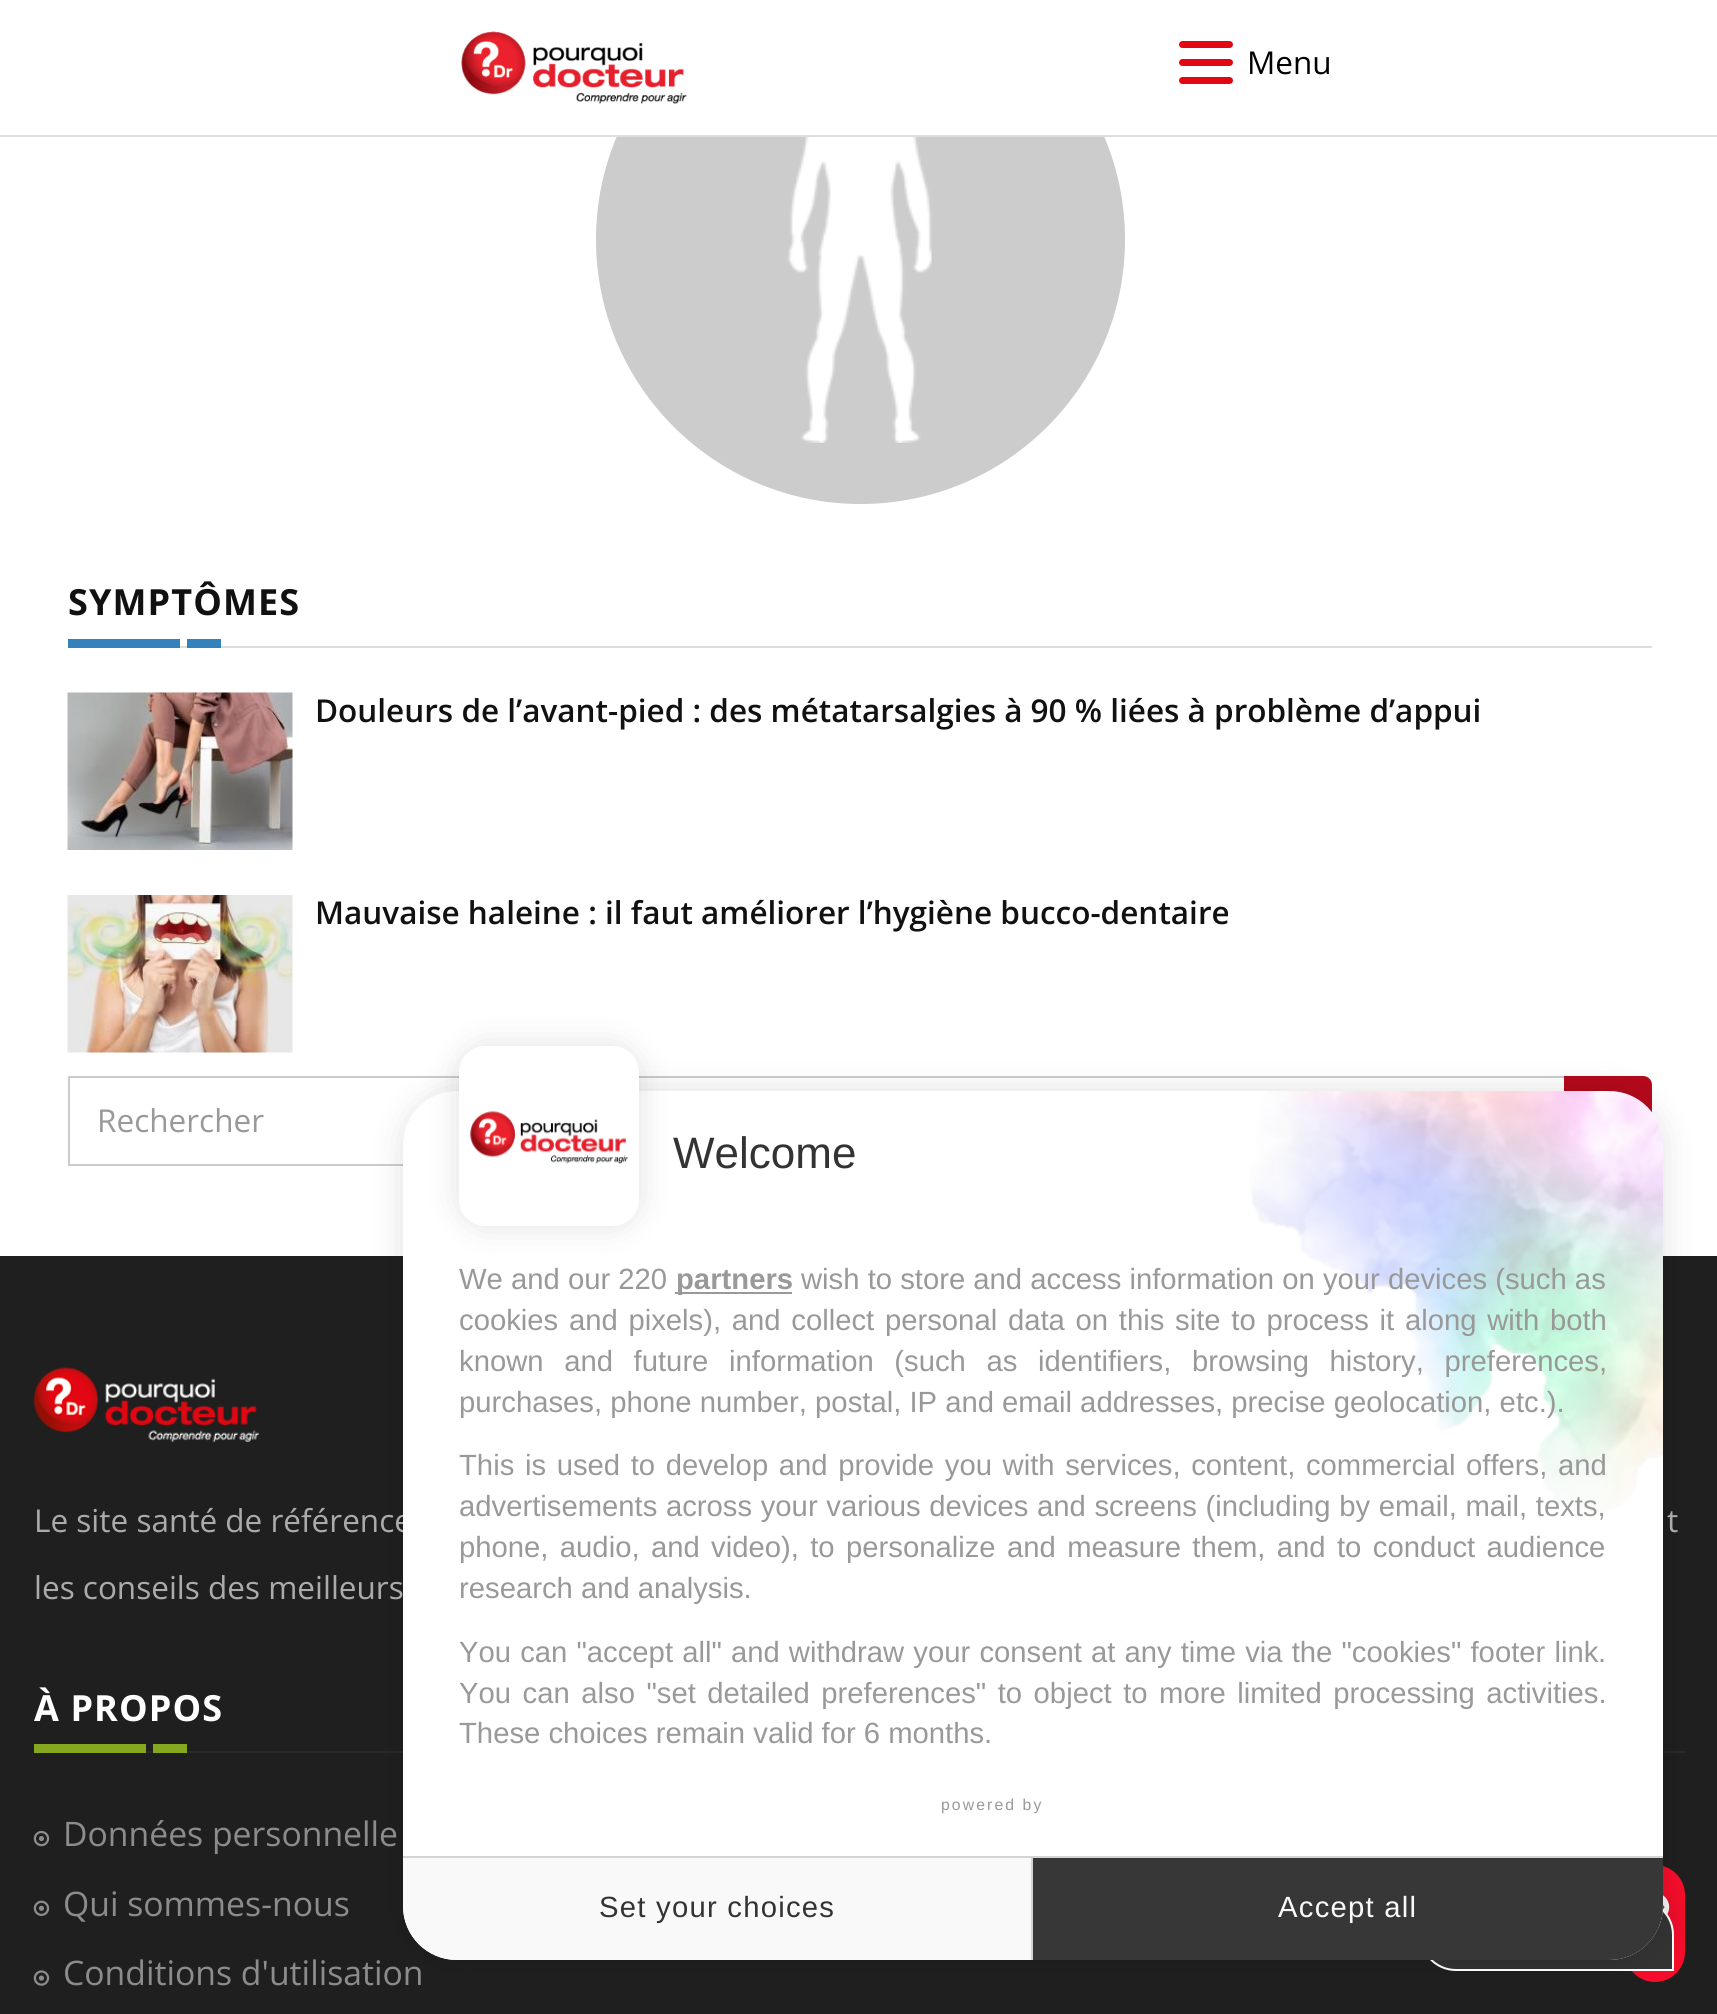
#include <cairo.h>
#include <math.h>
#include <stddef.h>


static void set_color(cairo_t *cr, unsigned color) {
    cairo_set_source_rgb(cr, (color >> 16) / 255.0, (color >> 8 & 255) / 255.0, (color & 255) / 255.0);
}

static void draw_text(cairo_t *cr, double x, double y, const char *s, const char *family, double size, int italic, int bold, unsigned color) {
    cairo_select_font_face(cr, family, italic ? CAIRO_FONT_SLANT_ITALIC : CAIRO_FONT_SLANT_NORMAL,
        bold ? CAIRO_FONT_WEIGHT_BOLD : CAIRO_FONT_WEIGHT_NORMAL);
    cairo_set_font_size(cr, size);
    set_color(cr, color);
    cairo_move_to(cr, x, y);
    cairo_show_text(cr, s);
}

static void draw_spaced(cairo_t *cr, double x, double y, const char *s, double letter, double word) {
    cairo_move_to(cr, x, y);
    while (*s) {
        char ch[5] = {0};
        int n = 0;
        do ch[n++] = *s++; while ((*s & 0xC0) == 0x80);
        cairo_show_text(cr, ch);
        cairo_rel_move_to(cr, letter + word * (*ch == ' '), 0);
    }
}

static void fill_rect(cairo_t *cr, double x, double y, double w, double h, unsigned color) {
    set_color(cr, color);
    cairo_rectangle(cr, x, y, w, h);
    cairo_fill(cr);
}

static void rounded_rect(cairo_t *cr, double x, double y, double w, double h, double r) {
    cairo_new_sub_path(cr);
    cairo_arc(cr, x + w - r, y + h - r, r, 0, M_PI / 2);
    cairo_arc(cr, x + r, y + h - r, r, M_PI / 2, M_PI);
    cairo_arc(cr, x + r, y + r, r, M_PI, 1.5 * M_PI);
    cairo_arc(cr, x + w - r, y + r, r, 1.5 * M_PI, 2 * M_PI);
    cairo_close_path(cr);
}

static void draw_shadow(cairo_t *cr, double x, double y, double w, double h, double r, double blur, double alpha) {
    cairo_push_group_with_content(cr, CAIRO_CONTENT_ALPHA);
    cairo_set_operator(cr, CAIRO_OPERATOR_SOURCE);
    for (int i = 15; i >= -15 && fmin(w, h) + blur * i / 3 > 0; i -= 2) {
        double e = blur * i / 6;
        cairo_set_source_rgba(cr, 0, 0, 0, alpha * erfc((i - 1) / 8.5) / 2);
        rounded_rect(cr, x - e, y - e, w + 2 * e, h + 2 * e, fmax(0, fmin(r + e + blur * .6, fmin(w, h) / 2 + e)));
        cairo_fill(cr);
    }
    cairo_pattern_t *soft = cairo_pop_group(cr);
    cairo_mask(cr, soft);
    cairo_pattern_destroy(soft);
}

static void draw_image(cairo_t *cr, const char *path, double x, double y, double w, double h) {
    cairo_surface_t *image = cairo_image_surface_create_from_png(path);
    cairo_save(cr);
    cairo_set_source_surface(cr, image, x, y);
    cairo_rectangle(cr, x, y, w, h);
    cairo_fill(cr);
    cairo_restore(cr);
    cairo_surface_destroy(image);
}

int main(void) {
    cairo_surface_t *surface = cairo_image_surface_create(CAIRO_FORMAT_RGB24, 1717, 2014);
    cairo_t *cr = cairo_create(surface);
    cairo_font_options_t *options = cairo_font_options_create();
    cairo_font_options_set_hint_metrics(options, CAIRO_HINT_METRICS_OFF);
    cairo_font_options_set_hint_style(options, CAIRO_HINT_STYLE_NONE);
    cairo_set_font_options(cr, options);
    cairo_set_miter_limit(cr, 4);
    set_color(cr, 0xFFFFFF);
    cairo_paint(cr);
    set_color(cr, 0xCCCCCC);
    cairo_arc(cr, 860.5, 239.5, 264.5, 0, 2 * M_PI);
    cairo_fill(cr);
    fill_rect(cr, 617, 0, 487, 135, 0xFFFFFF);
    fill_rect(cr, 0, 135, 1717, 2, 0xDDDDDD);
    draw_image(cr, "assets/img1.png", 461, 31, 226, 73);
    set_color(cr, 0xE30613);
    rounded_rect(cr, 1179, 41, 54, 7, 3.5);
    cairo_fill(cr);
    rounded_rect(cr, 1179, 59, 54, 7, 3.5);
    cairo_fill(cr);
    rounded_rect(cr, 1179, 77, 54, 7, 3.5);
    cairo_fill(cr);
    draw_text(cr, 1247, 74, "Menu", "Open Sans", 31.5, 0, 0, 0x000000);
    draw_image(cr, "assets/img2.png", 787, 137, 145, 306);
    cairo_select_font_face(cr, "Open Sans", CAIRO_FONT_SLANT_NORMAL, CAIRO_FONT_WEIGHT_BOLD);
    cairo_set_font_size(cr, 36);
    set_color(cr, 0x111111);
    draw_spaced(cr, 68, 615, "SYMPTÔMES", 1.1, 0);
    fill_rect(cr, 180, 646, 1472, 2, 0xDDDDDD);
    fill_rect(cr, 68, 639, 112, 9, 0x3382BB);
    fill_rect(cr, 187, 639, 34, 9, 0x3382BB);
    draw_image(cr, "assets/img3.png", 67, 692, 226, 158);
    draw_text(cr, 315, 722, "Douleurs de l’avant-pied : des métatarsalgies à 90 % liées à problème d’appui", "Open Sans SemiBold", 31.5, 0, 0, 0x111111);
    draw_image(cr, "assets/img4.png", 67, 895, 226, 158);
    draw_text(cr, 315, 924, "Mauvaise haleine : il faut améliorer l’hygiène bucco-dentaire", "Open Sans SemiBold", 31.5, 0, 0, 0x111111);
    cairo_rectangle(cr, 69, 1077, 1503, 88);
    set_color(cr, 0xCCCCCC);
    cairo_stroke(cr);
    draw_text(cr, 97, 1132, "Rechercher", "Open Sans", 31.5, 0, 0, 0x999999);
    set_color(cr, 0xB4091B);
    cairo_new_path(cr);
    cairo_move_to(cr, 1565, 1077);
    cairo_line_to(cr, 1643, 1077);
    cairo_curve_to(cr, 1647.5, 1077, 1651, 1080.5, 1651, 1085);
    cairo_line_to(cr, 1651, 1157);
    cairo_curve_to(cr, 1651, 1161.5, 1647.5, 1165, 1643, 1165);
    cairo_line_to(cr, 1565, 1165);
    cairo_close_path(cr);
    cairo_fill_preserve(cr);
    cairo_stroke(cr);
    fill_rect(cr, 0, 1256, 1717, 758, 0x1F1F1F);
    set_color(cr, 0xF60D2B);
    rounded_rect(cr, 1626, 1866, 58, 115, 29);
    cairo_fill_preserve(cr);
    cairo_stroke(cr);
    draw_image(cr, "assets/img11.png", 1662, 1895, 8, 20);
    set_color(cr, 0x000000);
    draw_shadow(cr, 1424, 1892, 246, 63, 31.5, 13.5, 0.12);
    set_color(cr, 0x333333);
    cairo_new_path(cr);
    cairo_move_to(cr, 1456, 1900);
    cairo_line_to(cr, 1638, 1900);
    cairo_curve_to(cr, 1657.5, 1900, 1673, 1915.5, 1673, 1935);
    cairo_line_to(cr, 1673, 1970);
    cairo_line_to(cr, 1456, 1970);
    cairo_curve_to(cr, 1436.5, 1970, 1421, 1954.5, 1421, 1935);
    cairo_curve_to(cr, 1421, 1915.5, 1436.5, 1900, 1456, 1900);
    cairo_close_path(cr);
    cairo_fill_preserve(cr);
    set_color(cr, 0xFFFFFF);
    cairo_stroke(cr);
    fill_rect(cr, 146, 1751, 1539, 2, 0x292929);
    set_color(cr, 0x000000);
    draw_shadow(cr, 403, 1091, 1260, 869, 54, 17, 0.12);
    draw_text(cr, 34, 1532, "Le site santé de référence", "Open Sans", 31.5, 0, 0, 0xABABAB);
    draw_text(cr, 63, 1985, "Conditions d'utilisation", "Open Sans", 33.75, 0, 0, 0x8C8C8C);
    set_color(cr, 0xFFFFFF);
    rounded_rect(cr, 403, 1091, 1260, 869, 54);
    cairo_fill(cr);
    set_color(cr, 0x000000);
    draw_shadow(cr, 459, 1046, 180, 180, 27, 17, 0.12);
    set_color(cr, 0xFFFFFF);
    rounded_rect(cr, 459, 1046, 180, 180, 27);
    cairo_fill(cr);
    draw_image(cr, "assets/img5.png", 470, 1111, 158, 53);
    rounded_rect(cr, 464.5, 1051.5, 169, 169, 21.5);
    cairo_set_line_width(cr, 11);
    cairo_stroke(cr);
    draw_image(cr, "assets/img6.png", 1250, 1091, 413, 422);
    draw_text(cr, 673, 1168, "Welcome", "Liberation Sans", 44, 0, 0, 0x333333);
    draw_text(cr, 459, 1289, "We and our 220", "Liberation Sans", 29.25, 0, 0, 0x999999);
    fill_rect(cr, 675, 1292, 117, 2, 0x999999);
    draw_text(cr, 676, 1289, "partners", "Liberation Sans", 29.25, 0, 1, 0x999999);
    draw_text(cr, 801, 1289, "wish to store and access information on your devices (such as", "Liberation Sans", 29.25, 0, 0, 0x999999);
    draw_spaced(cr, 459, 1330, "cookies and pixels), and collect personal data on this site to process it along with both", 0, 2.6);
    draw_spaced(cr, 459, 1371, "known and future information (such as identifiers, browsing history, preferences,", 0, 12.5);
    draw_text(cr, 459, 1412, "purchases, phone number, postal, IP and email addresses, precise geolocation, etc.).", "Liberation Sans", 29.25, 0, 0, 0x999999);
    draw_spaced(cr, 459, 1475, "This is used to develop and provide you with services, content, commercial offers, and", 0, 2.5);
    draw_spaced(cr, 459, 1516, "advertisements across your various devices and screens (including by email, mail, texts,", 0, 0.5);
    draw_spaced(cr, 459, 1557, "phone, audio, and video), to personalize and measure them, and to conduct audience", 0, 3.25);
    draw_text(cr, 459, 1598, "research and analysis.", "Liberation Sans", 29.25, 0, 0, 0x999999);
    draw_spaced(cr, 459, 1662, "You can \"accept all\" and withdraw your consent at any time via the \"cookies\" footer link", 0, 1);
    draw_text(cr, 1598, 1662, ".", "Liberation Sans", 29.25, 0, 0, 0x999999);
    draw_spaced(cr, 459, 1703, "You can also \"set detailed preferences\" to object to more limited processing activities.", 0, 3.4);
    draw_text(cr, 459, 1743, "These choices remain valid for 6 months.", "Liberation Sans", 29.25, 0, 0, 0x999999);
    cairo_set_font_size(cr, 15.75);
    draw_spaced(cr, 941, 1810, "powered by", 2.1, 0);
    set_color(cr, 0xF9F9F9);
    cairo_new_path(cr);
    cairo_move_to(cr, 403, 1856);
    cairo_line_to(cr, 1033, 1856);
    cairo_line_to(cr, 1033, 1960);
    cairo_line_to(cr, 457, 1960);
    cairo_curve_to(cr, 427, 1960, 403, 1936, 403, 1906);
    cairo_close_path(cr);
    cairo_fill(cr);
    fill_rect(cr, 403, 1856, 630, 2, 0xD4D4D4);
    fill_rect(cr, 1031, 1856, 2, 104, 0xD4D4D4);
    cairo_set_font_size(cr, 29.25);
    set_color(cr, 0x333333);
    draw_spaced(cr, 599, 1917, "Set your choices", 1.25, 0);
    set_color(cr, 0x373737);
    cairo_new_path(cr);
    cairo_move_to(cr, 1033, 1856);
    cairo_line_to(cr, 1663, 1856);
    cairo_line_to(cr, 1663, 1906);
    cairo_curve_to(cr, 1663, 1936, 1639, 1960, 1609, 1960);
    cairo_line_to(cr, 1033, 1960);
    cairo_close_path(cr);
    cairo_fill(cr);
    fill_rect(cr, 1033, 1856, 630, 2, 0xD4D4D4);
    set_color(cr, 0xF9F9F9);
    draw_spaced(cr, 1278, 1917, "Accept all", 1.25, 0);
    draw_image(cr, "assets/img7.png", 33, 1367, 226, 75);
    draw_text(cr, 1667, 1532, "t", "Open Sans", 31.5, 0, 0, 0xABABAB);
    draw_text(cr, 34, 1599, "les conseils des meilleurs", "Open Sans", 31.5, 0, 0, 0xABABAB);
    cairo_select_font_face(cr, "Open Sans", CAIRO_FONT_SLANT_NORMAL, CAIRO_FONT_WEIGHT_BOLD);
    cairo_set_font_size(cr, 36);
    set_color(cr, 0xFFFFFF);
    draw_spaced(cr, 34, 1721, "À PROPOS", 1.1, 0);
    fill_rect(cr, 34, 1744, 112, 9, 0x86A821);
    fill_rect(cr, 153, 1744, 34, 9, 0x86A821);
    draw_image(cr, "assets/img8.png", 33, 1830, 17, 17);
    draw_text(cr, 63, 1846, "Données personnelle", "Open Sans", 33.75, 0, 0, 0x8C8C8C);
    draw_image(cr, "assets/img9.png", 33, 1900, 17, 16);
    draw_text(cr, 63, 1916, "Qui sommes-nous", "Open Sans", 33.75, 0, 0, 0x8C8C8C);
    draw_image(cr, "assets/img10.png", 33, 1970, 17, 16);
    cairo_surface_write_to_png(surface, "output.png");
    cairo_font_options_destroy(options);
    cairo_destroy(cr);
    cairo_surface_destroy(surface);
    return 0;
}
